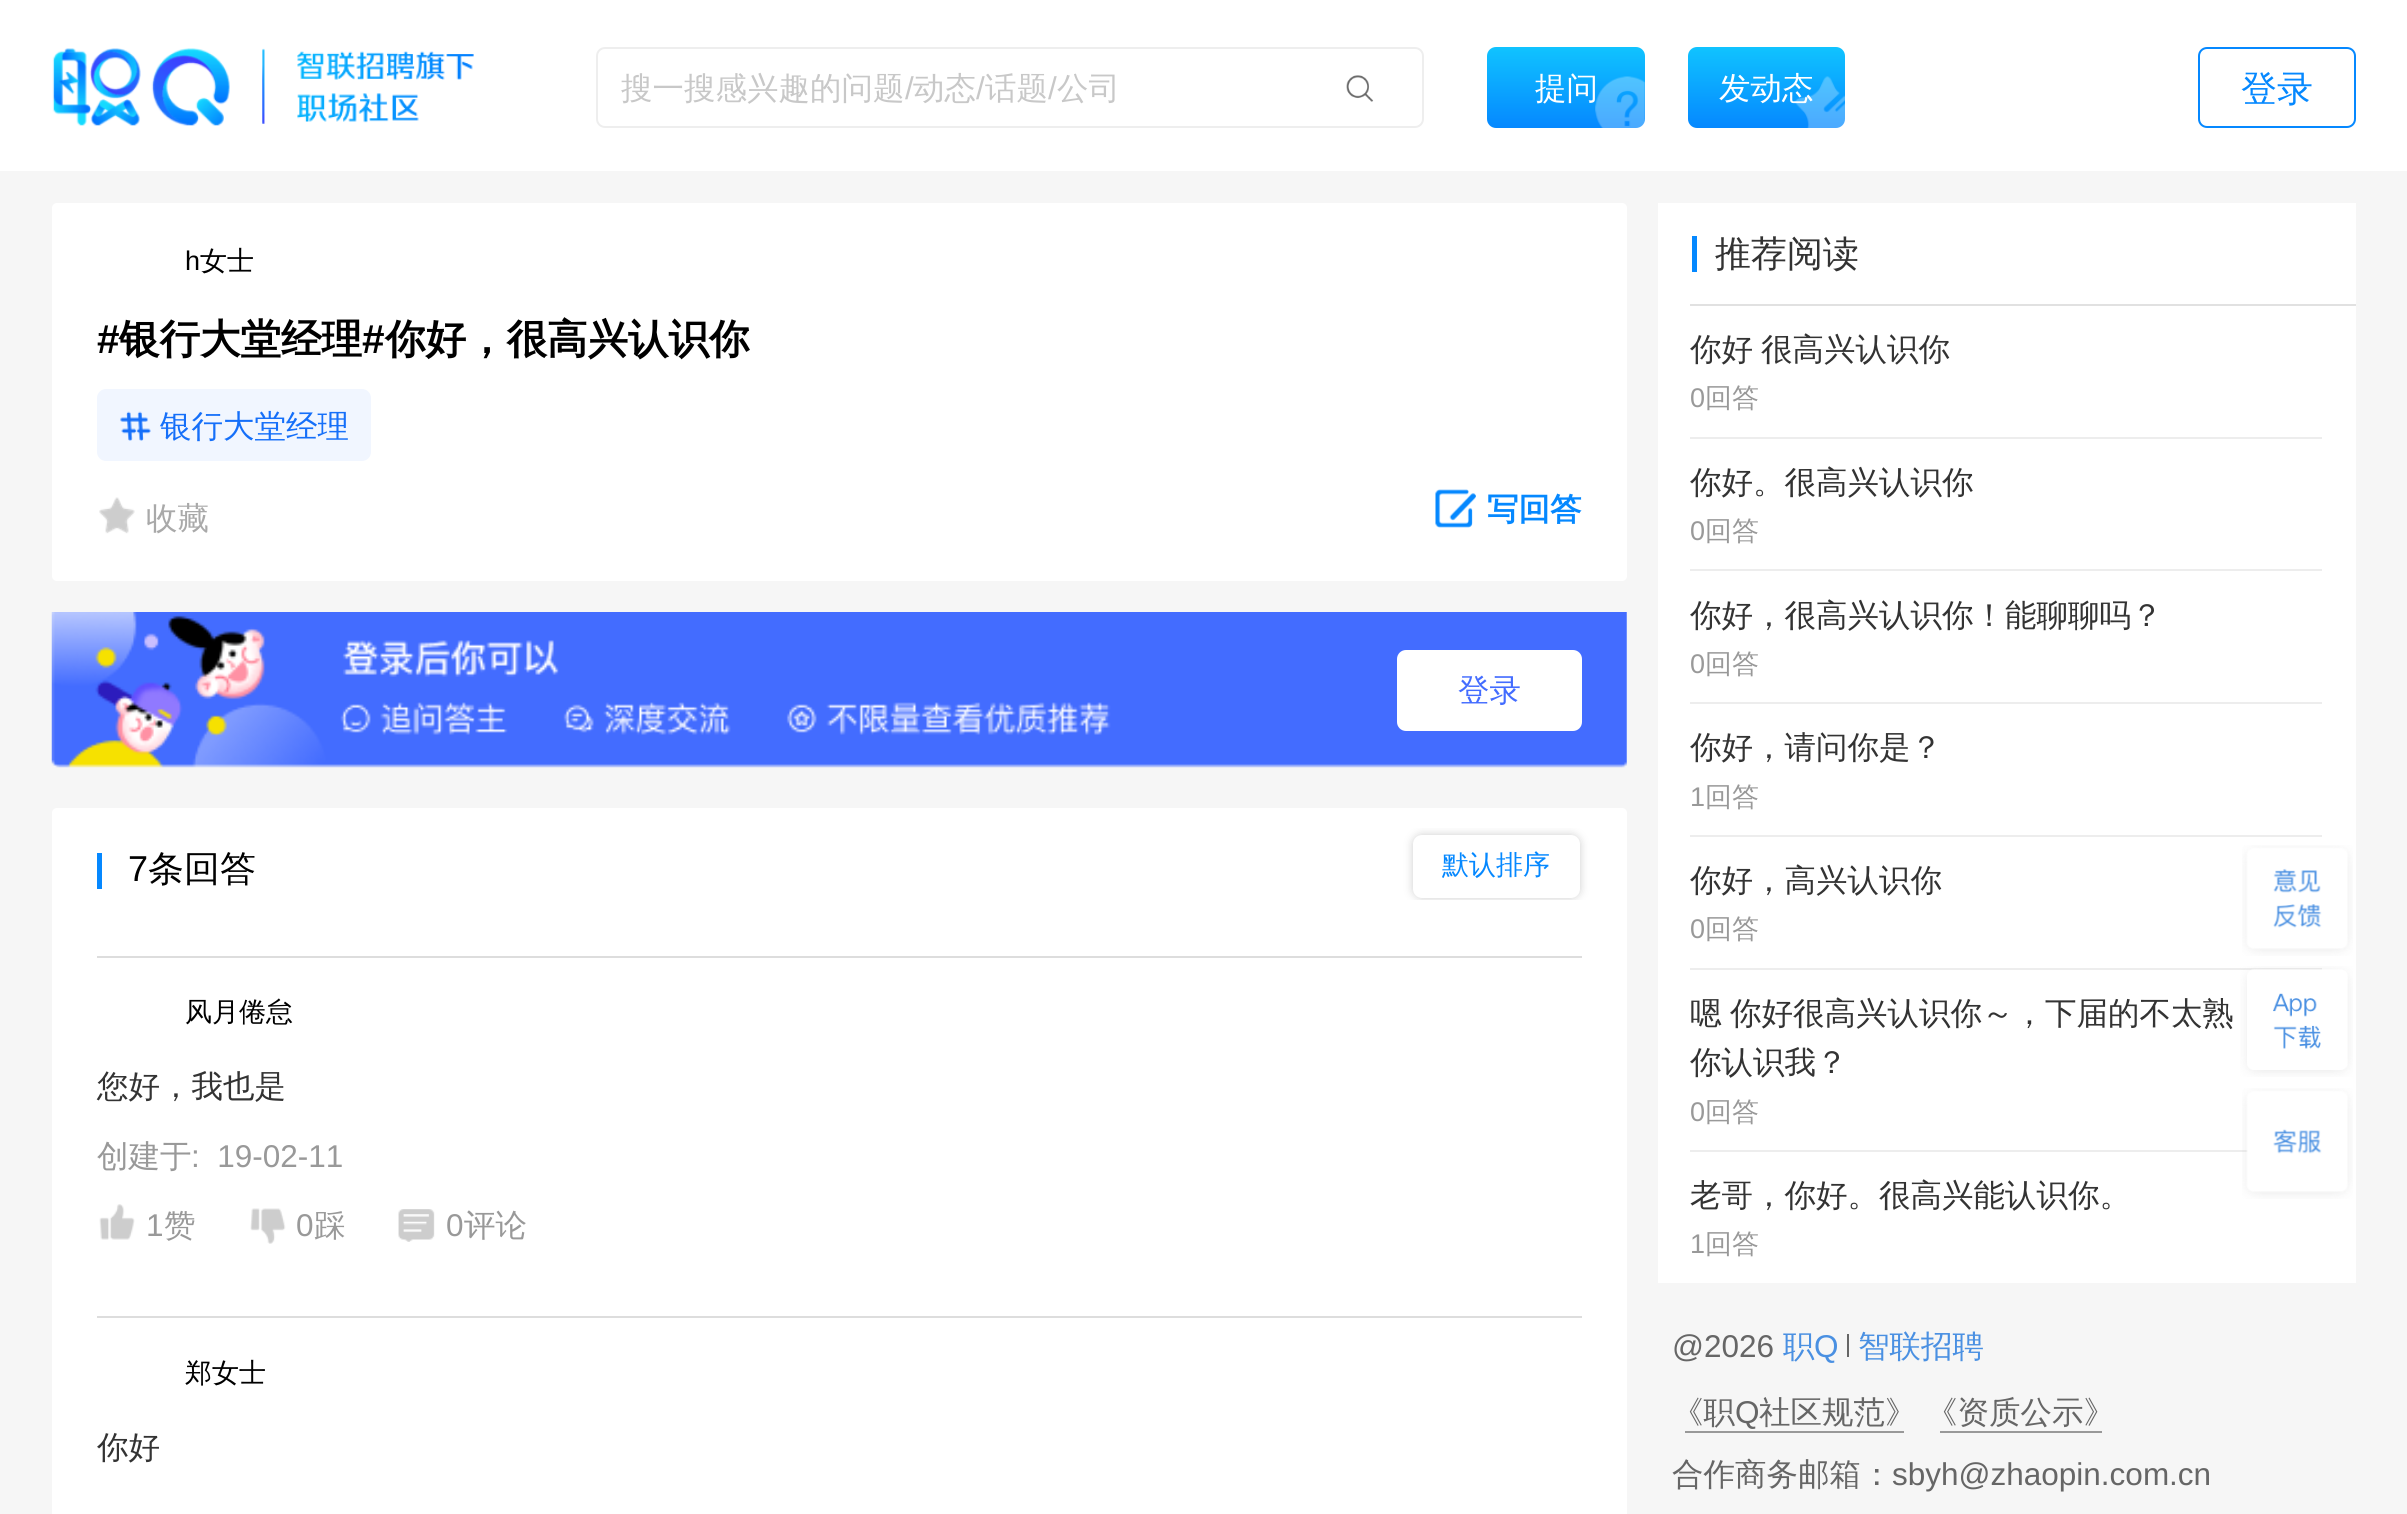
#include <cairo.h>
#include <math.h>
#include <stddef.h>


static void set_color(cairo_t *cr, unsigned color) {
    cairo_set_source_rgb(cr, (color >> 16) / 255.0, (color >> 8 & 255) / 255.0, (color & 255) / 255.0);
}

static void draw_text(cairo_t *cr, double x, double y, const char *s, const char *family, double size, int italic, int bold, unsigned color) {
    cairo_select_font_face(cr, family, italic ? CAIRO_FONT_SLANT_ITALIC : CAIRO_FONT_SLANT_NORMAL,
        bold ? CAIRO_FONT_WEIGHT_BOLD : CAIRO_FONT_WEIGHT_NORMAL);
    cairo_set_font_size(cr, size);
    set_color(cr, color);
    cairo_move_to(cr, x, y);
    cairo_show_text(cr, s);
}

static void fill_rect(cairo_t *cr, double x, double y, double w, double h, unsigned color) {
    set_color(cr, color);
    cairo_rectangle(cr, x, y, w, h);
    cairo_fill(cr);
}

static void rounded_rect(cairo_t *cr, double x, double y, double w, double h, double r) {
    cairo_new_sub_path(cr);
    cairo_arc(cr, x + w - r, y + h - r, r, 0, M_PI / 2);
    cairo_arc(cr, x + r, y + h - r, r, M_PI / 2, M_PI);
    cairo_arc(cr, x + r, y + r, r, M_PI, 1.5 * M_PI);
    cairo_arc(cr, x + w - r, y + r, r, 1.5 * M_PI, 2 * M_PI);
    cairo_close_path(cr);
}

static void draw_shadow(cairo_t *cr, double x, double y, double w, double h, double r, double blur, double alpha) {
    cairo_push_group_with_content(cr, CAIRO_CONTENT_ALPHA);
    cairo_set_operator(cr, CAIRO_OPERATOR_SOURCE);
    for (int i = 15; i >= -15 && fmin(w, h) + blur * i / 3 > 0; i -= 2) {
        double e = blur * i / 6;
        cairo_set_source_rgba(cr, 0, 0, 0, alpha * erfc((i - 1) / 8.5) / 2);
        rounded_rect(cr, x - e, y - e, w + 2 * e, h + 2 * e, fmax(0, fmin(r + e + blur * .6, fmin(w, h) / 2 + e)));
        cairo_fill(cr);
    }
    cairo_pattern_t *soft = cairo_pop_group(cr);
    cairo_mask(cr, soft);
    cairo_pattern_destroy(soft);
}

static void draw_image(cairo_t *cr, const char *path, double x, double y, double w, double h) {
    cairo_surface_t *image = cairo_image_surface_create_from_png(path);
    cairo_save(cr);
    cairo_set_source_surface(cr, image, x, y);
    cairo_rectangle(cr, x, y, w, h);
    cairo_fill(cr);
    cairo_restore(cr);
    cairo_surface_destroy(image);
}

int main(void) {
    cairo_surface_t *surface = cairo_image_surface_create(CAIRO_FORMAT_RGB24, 2407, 1514);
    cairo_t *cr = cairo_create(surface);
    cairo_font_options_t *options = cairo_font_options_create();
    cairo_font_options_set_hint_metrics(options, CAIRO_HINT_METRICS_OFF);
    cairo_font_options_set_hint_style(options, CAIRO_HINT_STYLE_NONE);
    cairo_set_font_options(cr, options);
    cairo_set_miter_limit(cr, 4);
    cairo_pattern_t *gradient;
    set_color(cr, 0xF6F6F6);
    cairo_paint(cr);
    fill_rect(cr, 0, 0, 2407, 171, 0xFFFFFF);
    draw_image(cr, "assets/img1.png", 52, 48, 422, 78);
    rounded_rect(cr, 597, 48, 826, 79, 8);
    set_color(cr, 0xEEEEEE);
    cairo_stroke(cr);
    draw_text(cr, 621, 99, "搜一搜感兴趣的问题", "WenQuanYi Zen Hei Medium", 31.5, 0, 0, 0xC8C8C8);
    draw_text(cr, 905, 99, "/", "Liberation Sans", 31.5, 0, 0, 0xC8C8C8);
    draw_text(cr, 913, 99, "动态", "WenQuanYi Zen Hei Medium", 31.5, 0, 0, 0xC8C8C8);
    draw_text(cr, 976, 99, "/", "Liberation Sans", 31.5, 0, 0, 0xC8C8C8);
    draw_text(cr, 985, 99, "话题", "WenQuanYi Zen Hei Medium", 31.5, 0, 0, 0xC8C8C8);
    draw_text(cr, 1048, 99, "/", "Liberation Sans", 31.5, 0, 0, 0xC8C8C8);
    draw_text(cr, 1057, 99, "公司", "WenQuanYi Zen Hei Medium", 31.5, 0, 0, 0xC8C8C8);
    draw_image(cr, "assets/img2.png", 1346, 75, 28, 27);
    gradient = cairo_pattern_create_linear(1566, 47, 1566, 128);
    cairo_pattern_add_color_stop_rgba(gradient, 0, 0.063, 0.765, 1, 1);
    cairo_pattern_add_color_stop_rgba(gradient, 1, 0.02, 0.533, 1, 1);
    cairo_set_source(cr, gradient);
    cairo_pattern_destroy(gradient);
    rounded_rect(cr, 1487, 47, 158, 81, 9);
    cairo_fill(cr);
    draw_image(cr, "assets/img3.png", 1595, 76, 50, 52);
    draw_text(cr, 1535, 99, "提问", "WenQuanYi Zen Hei Medium", 31.5, 0, 0, 0xFFFFFF);
    gradient = cairo_pattern_create_linear(1766, 47, 1766, 128);
    cairo_pattern_add_color_stop_rgba(gradient, 0, 0.063, 0.765, 1, 1);
    cairo_pattern_add_color_stop_rgba(gradient, 1, 0.02, 0.533, 1, 1);
    cairo_set_source(cr, gradient);
    cairo_pattern_destroy(gradient);
    rounded_rect(cr, 1688, 47, 157, 81, 9);
    cairo_fill(cr);
    draw_image(cr, "assets/img4.png", 1795, 76, 50, 52);
    draw_text(cr, 1719, 99, "发动态", "WenQuanYi Zen Hei Medium", 31.5, 0, 0, 0xFFFFFF);
    rounded_rect(cr, 2199, 48, 156, 79, 8);
    set_color(cr, 0x0588FF);
    cairo_stroke(cr);
    draw_text(cr, 2241, 101, "登录", "WenQuanYi Zen Hei Medium", 36, 0, 0, 0x0588FF);
    fill_rect(cr, 1658, 203, 698, 1080, 0xFFFFFF);
    draw_image(cr, "assets/img5.png", 2242, 845, 111, 111);
    fill_rect(cr, 1690, 968, 632, 2, 0xEDEDED);
    draw_image(cr, "assets/img6.png", 2240, 966, 113, 111);
    fill_rect(cr, 1690, 1150, 558, 2, 0xEDEDED);
    draw_image(cr, "assets/img7.png", 2242, 1088, 111, 111);
    set_color(cr, 0xFFFFFF);
    rounded_rect(cr, 52, 203, 1575, 378, 5);
    cairo_fill(cr);
    draw_text(cr, 185, 270, "h", "Liberation Sans", 27, 0, 0, 0x000000);
    draw_text(cr, 200, 270, "女士", "WenQuanYi Zen Hei Medium", 27, 0, 0, 0x000000);
    draw_text(cr, 97, 353, "#", "Liberation Sans", 40.5, 0, 1, 0x000000);
    draw_text(cr, 119, 353, "银行大堂经理", "WenQuanYi Zen Hei", 40.5, 0, 1, 0x000000);
    draw_text(cr, 362, 353, "#", "Liberation Sans", 40.5, 0, 1, 0x000000);
    draw_text(cr, 385, 353, "你好，很高兴认识你", "WenQuanYi Zen Hei", 40.5, 0, 1, 0x000000);
    set_color(cr, 0xF1F6FF);
    rounded_rect(cr, 97, 389, 274, 72, 9);
    cairo_fill(cr);
    draw_image(cr, "assets/img8.png", 120, 411, 31, 30);
    draw_text(cr, 160, 437, "银行大堂经理", "WenQuanYi Zen Hei Medium", 31.5, 0, 0, 0x156FF9);
    draw_image(cr, "assets/img9.png", 99, 497, 36, 37);
    draw_text(cr, 146, 529, "收藏", "WenQuanYi Zen Hei Medium", 31.5, 0, 0, 0xA9A9A9);
    draw_image(cr, "assets/img10.png", 1435, 489, 41, 39);
    draw_text(cr, 1487, 520, "写回答", "WenQuanYi Zen Hei", 31.5, 0, 1, 0x0588FF);
    draw_image(cr, "assets/img11.png", 51, 612, 1576, 156);
    set_color(cr, 0xFFFFFF);
    rounded_rect(cr, 1397, 650, 185, 81, 9);
    cairo_fill(cr);
    draw_text(cr, 1458, 701, "登录", "WenQuanYi Zen Hei Medium", 31.5, 0, 0, 0x436CFF);
    set_color(cr, 0xFFFFFF);
    rounded_rect(cr, 52, 808, 1575, 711, 5);
    cairo_fill(cr);
    fill_rect(cr, 97, 853, 5, 36, 0x0588FF);
    draw_text(cr, 128, 881, "7", "Liberation Sans", 36, 0, 0, 0x000000);
    draw_text(cr, 148, 881, "条回答", "WenQuanYi Zen Hei Medium", 36, 0, 0, 0x000000);
    cairo_save(cr);
    cairo_rectangle(cr, 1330, 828, 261, 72);
    cairo_clip(cr);
    set_color(cr, 0xCECECE);
    draw_shadow(cr, 1413, 835, 167, 63, 9, 4.5, 1);
    cairo_restore(cr);
    set_color(cr, 0xFFFFFF);
    rounded_rect(cr, 1413, 835, 167, 63, 9);
    cairo_fill(cr);
    draw_text(cr, 1442, 874, "默认排序", "WenQuanYi Zen Hei Medium", 27, 0, 0, 0x0588FF);
    fill_rect(cr, 97, 956, 1485, 2, 0xDDDDDD);
    draw_text(cr, 185, 1021, "风月倦怠", "WenQuanYi Zen Hei Medium", 27, 0, 0, 0x000000);
    draw_text(cr, 97, 1097, "您好，我也是", "WenQuanYi Zen Hei Medium", 31.5, 0, 0, 0x333333);
    draw_text(cr, 97, 1167, "创建于", "WenQuanYi Zen Hei Medium", 31.5, 0, 0, 0x999999);
    draw_text(cr, 191, 1167, ":  19-02-11", "Liberation Sans", 31.5, 0, 0, 0x999999);
    draw_image(cr, "assets/img12.png", 99, 1204, 36, 36);
    draw_text(cr, 146, 1236, "1", "Liberation Sans", 31.5, 0, 0, 0x999999);
    draw_text(cr, 164, 1236, "赞", "WenQuanYi Zen Hei Medium", 31.5, 0, 0, 0x999999);
    draw_image(cr, "assets/img13.png", 250, 1208, 36, 36);
    draw_text(cr, 296, 1236, "0", "Liberation Sans", 31.5, 0, 0, 0x999999);
    draw_text(cr, 314, 1236, "踩", "WenQuanYi Zen Hei Medium", 31.5, 0, 0, 0x999999);
    draw_image(cr, "assets/img14.png", 398, 1209, 37, 33);
    draw_text(cr, 446, 1236, "0", "Liberation Sans", 31.5, 0, 0, 0x999999);
    draw_text(cr, 464, 1236, "评论", "WenQuanYi Zen Hei Medium", 31.5, 0, 0, 0x999999);
    fill_rect(cr, 97, 1316, 1485, 2, 0xDDDDDD);
    draw_text(cr, 185, 1382, "郑女士", "WenQuanYi Zen Hei Medium", 27, 0, 0, 0x000000);
    draw_text(cr, 97, 1458, "你好", "WenQuanYi Zen Hei Medium", 31.5, 0, 0, 0x333333);
    fill_rect(cr, 1692, 236, 5, 36, 0x0588FF);
    draw_text(cr, 1715, 266, "推荐阅读", "WenQuanYi Zen Hei Medium", 36, 0, 0, 0x333333);
    fill_rect(cr, 1690, 304, 666, 2, 0xE1E1E1);
    fill_rect(cr, 1690, 437, 632, 2, 0xEDEDED);
    draw_text(cr, 1690, 360, "你好", "WenQuanYi Zen Hei Medium", 31.5, 0, 0, 0x333333);
    draw_text(cr, 1761, 360, "很高兴认识你", "WenQuanYi Zen Hei Medium", 31.5, 0, 0, 0x333333);
    draw_text(cr, 1690, 407, "0", "Liberation Sans", 27, 0, 0, 0x999999);
    draw_text(cr, 1705, 407, "回答", "WenQuanYi Zen Hei Medium", 27, 0, 0, 0x999999);
    fill_rect(cr, 1690, 569, 632, 2, 0xEDEDED);
    draw_text(cr, 1690, 493, "你好。很高兴认识你", "WenQuanYi Zen Hei Medium", 31.5, 0, 0, 0x333333);
    draw_text(cr, 1690, 540, "0", "Liberation Sans", 27, 0, 0, 0x999999);
    draw_text(cr, 1705, 540, "回答", "WenQuanYi Zen Hei Medium", 27, 0, 0, 0x999999);
    fill_rect(cr, 1690, 702, 632, 2, 0xEDEDED);
    draw_text(cr, 1690, 626, "你好，很高兴认识你！能聊聊吗？", "WenQuanYi Zen Hei Medium", 31.5, 0, 0, 0x333333);
    draw_text(cr, 1690, 673, "0", "Liberation Sans", 27, 0, 0, 0x999999);
    draw_text(cr, 1705, 673, "回答", "WenQuanYi Zen Hei Medium", 27, 0, 0, 0x999999);
    fill_rect(cr, 1690, 835, 632, 2, 0xEDEDED);
    draw_text(cr, 1690, 758, "你好，请问你是？", "WenQuanYi Zen Hei Medium", 31.5, 0, 0, 0x333333);
    draw_text(cr, 1690, 806, "1", "Liberation Sans", 27, 0, 0, 0x999999);
    draw_text(cr, 1705, 806, "回答", "WenQuanYi Zen Hei Medium", 27, 0, 0, 0x999999);
    draw_text(cr, 1690, 891, "你好，高兴认识你", "WenQuanYi Zen Hei Medium", 31.5, 0, 0, 0x333333);
    draw_text(cr, 1690, 938, "0", "Liberation Sans", 27, 0, 0, 0x999999);
    draw_text(cr, 1705, 938, "回答", "WenQuanYi Zen Hei Medium", 27, 0, 0, 0x999999);
    draw_text(cr, 1690, 1024, "嗯", "WenQuanYi Zen Hei Medium", 31.5, 0, 0, 0x333333);
    draw_text(cr, 1730, 1024, "你好很高兴认识你～，下届的不太熟", "WenQuanYi Zen Hei Medium", 31.5, 0, 0, 0x333333);
    draw_text(cr, 1690, 1073, "你认识我？", "WenQuanYi Zen Hei Medium", 31.5, 0, 0, 0x333333);
    draw_text(cr, 1690, 1121, "0", "Liberation Sans", 27, 0, 0, 0x999999);
    draw_text(cr, 1705, 1121, "回答", "WenQuanYi Zen Hei Medium", 27, 0, 0, 0x999999);
    draw_text(cr, 1690, 1206, "老哥，你好。很高兴能认识你。", "WenQuanYi Zen Hei Medium", 31.5, 0, 0, 0x333333);
    draw_text(cr, 1690, 1253, "1", "Liberation Sans", 27, 0, 0, 0x999999);
    draw_text(cr, 1705, 1253, "回答", "WenQuanYi Zen Hei Medium", 27, 0, 0, 0x999999);
    draw_text(cr, 1672, 1357, "@2026", "Liberation Sans", 31.5, 0, 0, 0x666666);
    draw_text(cr, 1783, 1357, "职", "WenQuanYi Zen Hei Medium", 31.5, 0, 0, 0x4A90E2);
    draw_text(cr, 1814, 1357, "Q", "Liberation Sans", 31.5, 0, 0, 0x4A90E2);
    fill_rect(cr, 1847, 1334, 2, 23, 0x666666);
    draw_text(cr, 1858, 1357, "智联招聘", "WenQuanYi Zen Hei Medium", 31.5, 0, 0, 0x4A90E2);
    draw_text(cr, 1672, 1423, "《职", "WenQuanYi Zen Hei Medium", 31.5, 0, 0, 0x666666);
    draw_text(cr, 1735, 1423, "Q", "Liberation Sans", 31.5, 0, 0, 0x666666);
    draw_text(cr, 1759, 1423, "社区规范》", "WenQuanYi Zen Hei Medium", 31.5, 0, 0, 0x666666);
    fill_rect(cr, 1685, 1431, 219, 2, 0x999999);
    draw_text(cr, 1926, 1423, "《资质公示》", "WenQuanYi Zen Hei Medium", 31.5, 0, 0, 0x666666);
    fill_rect(cr, 1940, 1431, 162, 2, 0x999999);
    draw_text(cr, 1672, 1485, "合作商务邮箱：", "WenQuanYi Zen Hei Medium", 31.5, 0, 0, 0x666666);
    draw_text(cr, 1892, 1485, "sbyh@zhaopin.com.cn", "Liberation Sans", 31.5, 0, 0, 0x666666);
    cairo_surface_write_to_png(surface, "output.png");
    cairo_font_options_destroy(options);
    cairo_destroy(cr);
    cairo_surface_destroy(surface);
    return 0;
}
